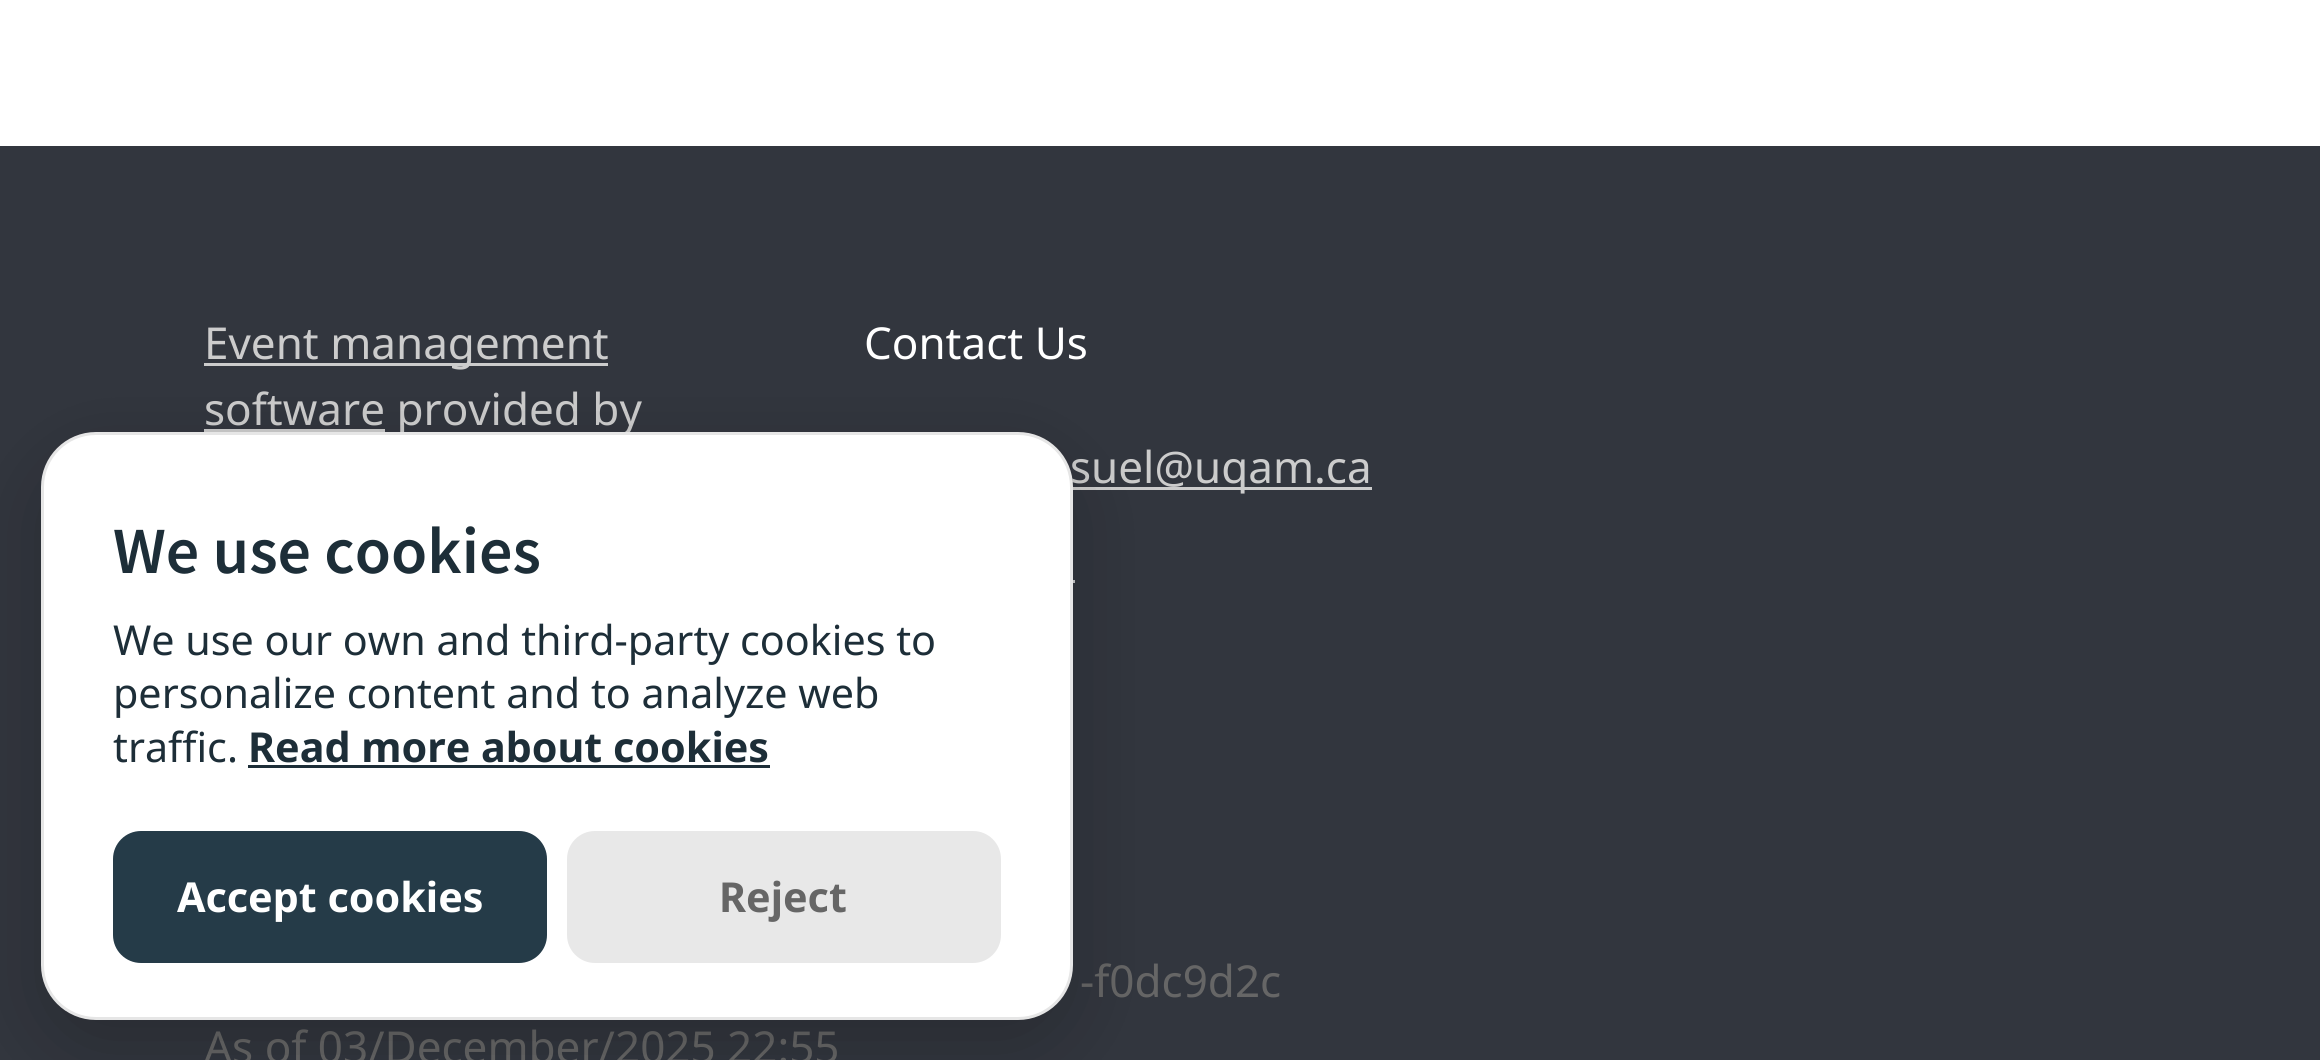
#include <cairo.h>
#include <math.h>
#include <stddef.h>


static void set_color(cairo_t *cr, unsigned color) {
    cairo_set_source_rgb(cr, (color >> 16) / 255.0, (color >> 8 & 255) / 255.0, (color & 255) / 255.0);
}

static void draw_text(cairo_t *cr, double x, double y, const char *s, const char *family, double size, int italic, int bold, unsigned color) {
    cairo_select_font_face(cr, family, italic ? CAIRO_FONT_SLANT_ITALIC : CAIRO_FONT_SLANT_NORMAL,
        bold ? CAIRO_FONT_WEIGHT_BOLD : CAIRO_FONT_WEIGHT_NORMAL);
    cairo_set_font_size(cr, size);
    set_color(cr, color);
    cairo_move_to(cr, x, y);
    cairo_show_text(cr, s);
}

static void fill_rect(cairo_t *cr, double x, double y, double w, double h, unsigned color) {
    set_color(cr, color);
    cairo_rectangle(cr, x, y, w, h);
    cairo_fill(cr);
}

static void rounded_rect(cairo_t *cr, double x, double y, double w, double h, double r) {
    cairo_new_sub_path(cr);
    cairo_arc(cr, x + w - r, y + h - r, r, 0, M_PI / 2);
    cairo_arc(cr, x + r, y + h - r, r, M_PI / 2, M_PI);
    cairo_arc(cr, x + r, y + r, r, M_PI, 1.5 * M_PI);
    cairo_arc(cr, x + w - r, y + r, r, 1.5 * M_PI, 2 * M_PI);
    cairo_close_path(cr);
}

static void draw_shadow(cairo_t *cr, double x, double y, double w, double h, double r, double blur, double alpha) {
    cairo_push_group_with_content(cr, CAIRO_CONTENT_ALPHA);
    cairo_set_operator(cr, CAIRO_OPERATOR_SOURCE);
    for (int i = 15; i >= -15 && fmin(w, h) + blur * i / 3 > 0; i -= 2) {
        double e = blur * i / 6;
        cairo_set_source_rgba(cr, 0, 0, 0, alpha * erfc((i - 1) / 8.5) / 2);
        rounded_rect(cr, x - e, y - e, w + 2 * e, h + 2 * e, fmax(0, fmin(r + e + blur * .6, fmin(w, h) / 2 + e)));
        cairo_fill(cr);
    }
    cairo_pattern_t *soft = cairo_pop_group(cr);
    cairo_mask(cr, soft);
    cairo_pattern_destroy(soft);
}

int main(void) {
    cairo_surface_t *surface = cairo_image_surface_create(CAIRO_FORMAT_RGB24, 2320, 1060);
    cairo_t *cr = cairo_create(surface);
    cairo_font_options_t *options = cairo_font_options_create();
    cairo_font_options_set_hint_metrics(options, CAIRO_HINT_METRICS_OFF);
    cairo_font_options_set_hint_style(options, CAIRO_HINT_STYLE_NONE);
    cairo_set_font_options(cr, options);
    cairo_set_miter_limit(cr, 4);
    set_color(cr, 0xFFFFFF);
    cairo_paint(cr);
    fill_rect(cr, 0, 146, 2320, 914, 0x32363E);
    fill_rect(cr, 204, 363, 404, 3, 0xCCCCCC);
    draw_text(cr, 204, 359, "Event management", "Noto Sans", 44, 0, 0, 0xCCCCCC);
    fill_rect(cr, 204, 429, 181, 3, 0xCCCCCC);
    draw_text(cr, 204, 425, "software provided by", "Noto Sans", 44, 0, 0, 0xCCCCCC);
    draw_text(cr, 864, 359, "Contact Us", "Noto Sans", 44, 0, 0, 0xFFFFFF);
    fill_rect(cr, 1073, 487, 299, 3, 0xCCCCCC);
    draw_text(cr, 1070, 483, "suel@uqam.ca", "Noto Sans", 44, 0, 0, 0xCCCCCC);
    fill_rect(cr, 1073, 580, 2, 3, 0xCCCCCC);
    draw_text(cr, 1080, 997, "-f0dc9d2c", "Noto Sans", 44, 0, 0, 0x666666);
    draw_text(cr, 204, 1063, "As of 03/December/2025 22:55", "Noto Sans", 44, 0, 0, 0x666666);
    set_color(cr, 0x020203);
    draw_shadow(cr, 41, 459, 1032, 589, 55, 41, 0.2);
    set_color(cr, 0xFFFFFF);
    rounded_rect(cr, 42.5, 433.5, 1029, 585, 53.5);
    cairo_fill_preserve(cr);
    set_color(cr, 0xE6E6E6);
    cairo_set_line_width(cr, 3);
    cairo_stroke(cr);
    draw_text(cr, 113, 573, "We use cookies", "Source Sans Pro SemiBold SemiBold", 66, 0, 0, 0x1D2E38);
    draw_text(cr, 113, 655, "We use our own and third-party cookies to", "Noto Sans", 41.25, 0, 0, 0x1D2E38);
    draw_text(cr, 113, 708, "personalize content and to analyze web", "Noto Sans", 41.25, 0, 0, 0x1D2E38);
    draw_text(cr, 113, 762, "traffic.", "Noto Sans", 41.25, 0, 0, 0x1D2E38);
    draw_text(cr, 248, 762, "Read more about cookies", "Noto Sans", 41.25, 0, 1, 0x1D2E38);
    fill_rect(cr, 248, 765, 522, 3, 0x1D2E38);
    set_color(cr, 0x253B48);
    rounded_rect(cr, 113, 831, 434, 132, 28);
    cairo_fill(cr);
    draw_text(cr, 177, 912, "Accept cookies", "Noto Sans", 41.25, 0, 1, 0xFFFFFF);
    set_color(cr, 0xE8E8E8);
    rounded_rect(cr, 567, 831, 434, 132, 28);
    cairo_fill(cr);
    draw_text(cr, 719, 912, "Reject", "Noto Sans", 41.25, 0, 1, 0x666666);
    cairo_surface_write_to_png(surface, "output.png");
    cairo_font_options_destroy(options);
    cairo_destroy(cr);
    cairo_surface_destroy(surface);
    return 0;
}
